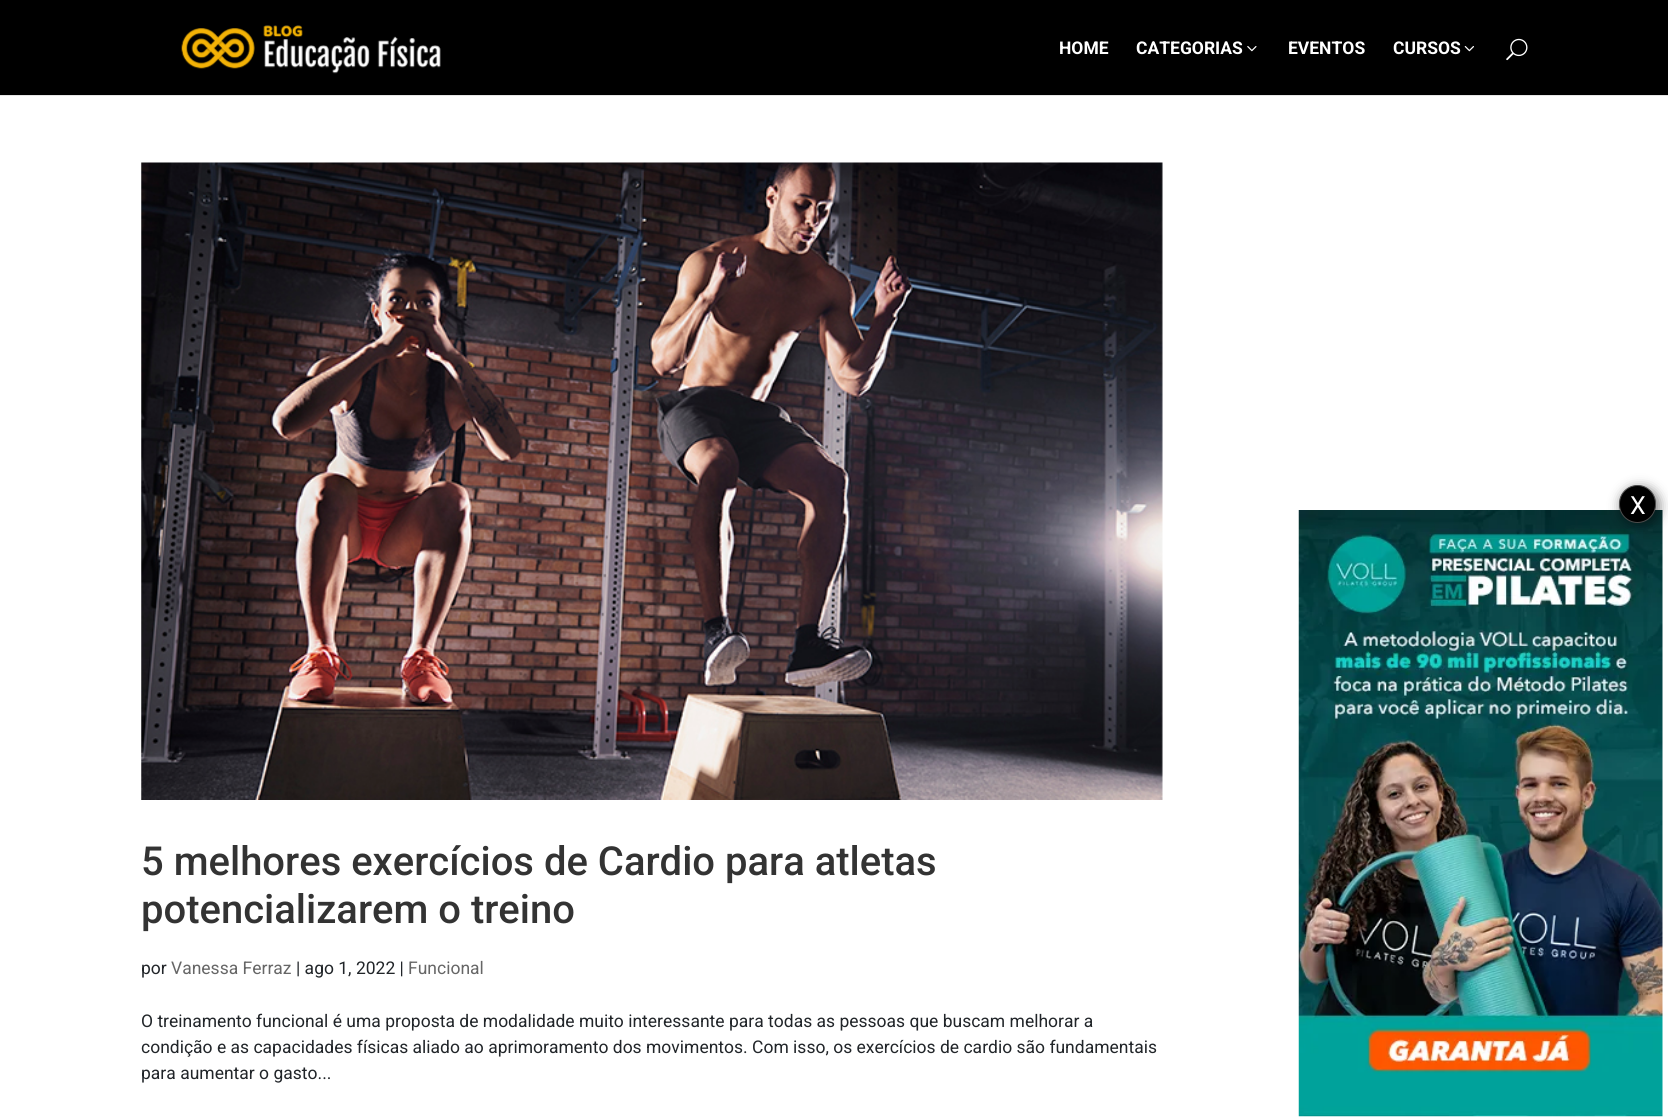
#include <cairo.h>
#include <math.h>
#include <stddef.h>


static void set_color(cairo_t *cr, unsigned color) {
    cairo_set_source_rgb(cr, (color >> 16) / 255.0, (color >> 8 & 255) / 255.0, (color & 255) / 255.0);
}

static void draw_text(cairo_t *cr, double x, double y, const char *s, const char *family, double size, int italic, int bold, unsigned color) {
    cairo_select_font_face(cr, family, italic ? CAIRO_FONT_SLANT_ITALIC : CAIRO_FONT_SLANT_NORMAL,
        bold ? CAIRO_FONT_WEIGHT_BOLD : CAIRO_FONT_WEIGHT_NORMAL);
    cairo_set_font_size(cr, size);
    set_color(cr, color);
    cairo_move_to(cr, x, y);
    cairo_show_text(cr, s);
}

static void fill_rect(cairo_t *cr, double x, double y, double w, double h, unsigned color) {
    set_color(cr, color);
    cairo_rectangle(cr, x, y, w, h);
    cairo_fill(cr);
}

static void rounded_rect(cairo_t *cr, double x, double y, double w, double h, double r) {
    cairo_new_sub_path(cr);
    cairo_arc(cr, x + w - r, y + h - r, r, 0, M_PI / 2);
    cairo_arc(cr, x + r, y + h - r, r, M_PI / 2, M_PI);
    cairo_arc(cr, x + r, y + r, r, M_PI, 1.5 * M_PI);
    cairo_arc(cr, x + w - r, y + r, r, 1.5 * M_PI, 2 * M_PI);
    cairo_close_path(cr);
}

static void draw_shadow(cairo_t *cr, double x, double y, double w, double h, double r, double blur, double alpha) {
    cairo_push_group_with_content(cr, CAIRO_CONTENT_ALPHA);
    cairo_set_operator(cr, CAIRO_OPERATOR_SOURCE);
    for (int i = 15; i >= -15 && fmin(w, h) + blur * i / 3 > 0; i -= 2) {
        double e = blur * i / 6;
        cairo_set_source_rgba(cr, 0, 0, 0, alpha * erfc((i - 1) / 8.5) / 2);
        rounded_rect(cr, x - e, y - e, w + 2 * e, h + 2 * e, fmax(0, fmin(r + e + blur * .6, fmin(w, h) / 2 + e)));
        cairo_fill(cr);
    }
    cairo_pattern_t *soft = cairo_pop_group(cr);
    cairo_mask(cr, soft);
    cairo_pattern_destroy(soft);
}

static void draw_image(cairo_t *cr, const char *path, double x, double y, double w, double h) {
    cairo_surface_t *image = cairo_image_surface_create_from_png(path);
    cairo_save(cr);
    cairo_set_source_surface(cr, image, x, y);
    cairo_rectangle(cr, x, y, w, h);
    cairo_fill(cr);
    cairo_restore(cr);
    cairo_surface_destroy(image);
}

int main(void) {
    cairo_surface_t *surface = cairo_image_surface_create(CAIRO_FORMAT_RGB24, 1668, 1119);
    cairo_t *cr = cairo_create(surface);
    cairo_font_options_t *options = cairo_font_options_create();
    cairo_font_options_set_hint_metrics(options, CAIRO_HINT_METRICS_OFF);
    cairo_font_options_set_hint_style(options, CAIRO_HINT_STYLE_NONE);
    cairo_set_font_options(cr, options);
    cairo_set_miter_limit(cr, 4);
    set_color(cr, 0xFFFFFF);
    cairo_paint(cr);
    set_color(cr, 0xE6E6E6);
    cairo_new_path(cr);
    cairo_move_to(cr, 0, 95);
    cairo_line_to(cr, 0, 96);
    cairo_line_to(cr, 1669, 96);
    cairo_line_to(cr, 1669, 1);
    cairo_line_to(cr, 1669, 95);
    cairo_close_path(cr);
    cairo_fill(cr);
    fill_rect(cr, 0, 0, 1668, 95, 0x000000);
    draw_image(cr, "assets/img1.png", 181, 25, 260, 49);
    draw_text(cr, 1059, 54, "HOME", "Roboto", 17.5, 0, 1, 0xFFFFFF);
    draw_text(cr, 1136, 54, "CATEGORIAS", "Roboto", 17.5, 0, 1, 0xFFFFFF);
    draw_image(cr, "assets/img2.png", 1247, 46, 10, 6);
    draw_text(cr, 1288, 54, "EVENTOS", "Roboto", 17.5, 0, 1, 0xFFFFFF);
    draw_text(cr, 1393, 54, "CURSOS", "Roboto", 17.5, 0, 1, 0xFFFFFF);
    draw_image(cr, "assets/img3.png", 1464, 46, 10, 6);
    draw_image(cr, "assets/img4.png", 1506, 38, 22, 23);
    draw_image(cr, "assets/img5.png", 141, 162, 1022, 638);
    draw_text(cr, 141, 875, "5 melhores exercícios de Cardio para atletas", "Roboto Medium", 40, 0, 0, 0x333333);
    draw_text(cr, 141, 923, "potencializarem o treino", "Roboto Medium", 40, 0, 0, 0x333333);
    draw_text(cr, 141, 974, "por", "Roboto", 17.5, 0, 0, 0x212529);
    draw_text(cr, 171, 974, "Vanessa Ferraz", "Roboto", 17.5, 0, 0, 0x666666);
    draw_text(cr, 296, 974, "| ago 1, 2022 |", "Roboto", 17.5, 0, 0, 0x212529);
    draw_text(cr, 408, 974, "Funcional", "Roboto", 17.5, 0, 0, 0x666666);
    draw_text(cr, 141, 1027, "O treinamento funcional é uma proposta de modalidade muito interessante para todas as pessoas que buscam melhorar a", "Roboto", 17.5, 0, 0, 0x212529);
    draw_text(cr, 141, 1053, "condição e as capacidades físicas aliado ao aprimoramento dos movimentos. Com isso, os exercícios de cardio são fundamentais", "Roboto", 17.5, 0, 0, 0x212529);
    draw_text(cr, 141, 1079, "para aumentar o gasto...", "Roboto", 17.5, 0, 0, 0x212529);
    draw_image(cr, "assets/img6.png", 1298, 510, 365, 607);
    set_color(cr, 0x000000);
    draw_shadow(cr, 1621, 488, 38, 37, 18.5, 6, 0.52);
    set_color(cr, 0x000000);
    rounded_rect(cr, 1619.5, 485.5, 36, 37, 18);
    cairo_fill_preserve(cr);
    set_color(cr, 0x4C4C4C);
    cairo_set_line_width(cr, 1);
    cairo_stroke(cr);
    draw_text(cr, 1630, 514, "X", "Roboto", 25, 0, 0, 0xFFFFFF);
    cairo_surface_write_to_png(surface, "output.png");
    cairo_font_options_destroy(options);
    cairo_destroy(cr);
    cairo_surface_destroy(surface);
    return 0;
}
